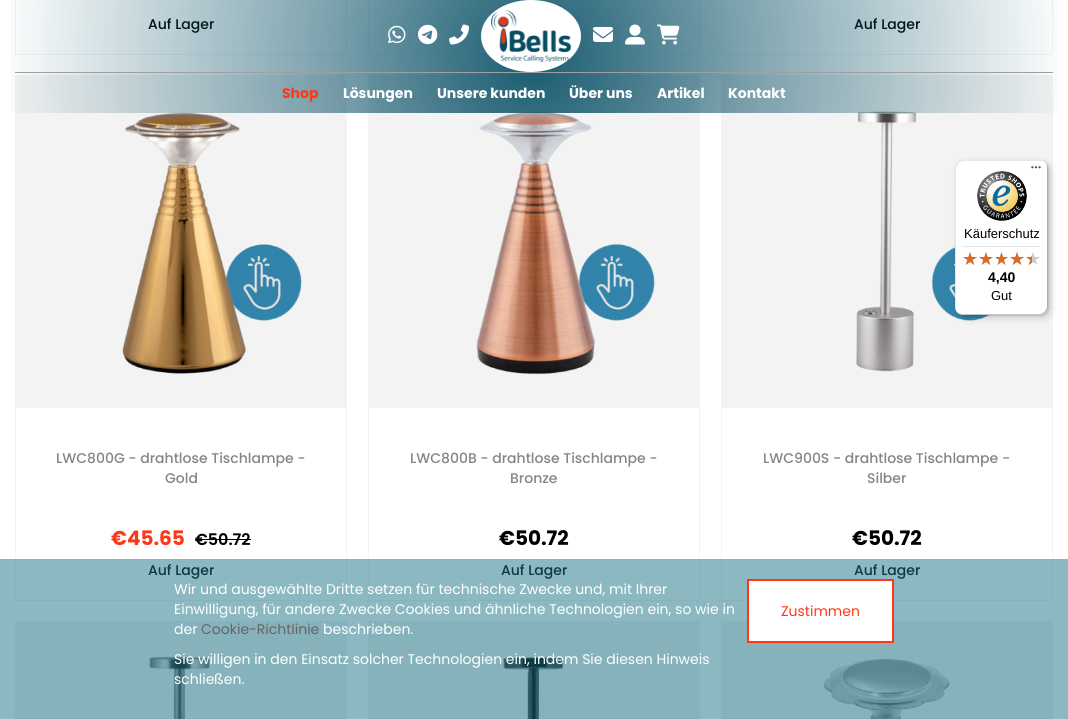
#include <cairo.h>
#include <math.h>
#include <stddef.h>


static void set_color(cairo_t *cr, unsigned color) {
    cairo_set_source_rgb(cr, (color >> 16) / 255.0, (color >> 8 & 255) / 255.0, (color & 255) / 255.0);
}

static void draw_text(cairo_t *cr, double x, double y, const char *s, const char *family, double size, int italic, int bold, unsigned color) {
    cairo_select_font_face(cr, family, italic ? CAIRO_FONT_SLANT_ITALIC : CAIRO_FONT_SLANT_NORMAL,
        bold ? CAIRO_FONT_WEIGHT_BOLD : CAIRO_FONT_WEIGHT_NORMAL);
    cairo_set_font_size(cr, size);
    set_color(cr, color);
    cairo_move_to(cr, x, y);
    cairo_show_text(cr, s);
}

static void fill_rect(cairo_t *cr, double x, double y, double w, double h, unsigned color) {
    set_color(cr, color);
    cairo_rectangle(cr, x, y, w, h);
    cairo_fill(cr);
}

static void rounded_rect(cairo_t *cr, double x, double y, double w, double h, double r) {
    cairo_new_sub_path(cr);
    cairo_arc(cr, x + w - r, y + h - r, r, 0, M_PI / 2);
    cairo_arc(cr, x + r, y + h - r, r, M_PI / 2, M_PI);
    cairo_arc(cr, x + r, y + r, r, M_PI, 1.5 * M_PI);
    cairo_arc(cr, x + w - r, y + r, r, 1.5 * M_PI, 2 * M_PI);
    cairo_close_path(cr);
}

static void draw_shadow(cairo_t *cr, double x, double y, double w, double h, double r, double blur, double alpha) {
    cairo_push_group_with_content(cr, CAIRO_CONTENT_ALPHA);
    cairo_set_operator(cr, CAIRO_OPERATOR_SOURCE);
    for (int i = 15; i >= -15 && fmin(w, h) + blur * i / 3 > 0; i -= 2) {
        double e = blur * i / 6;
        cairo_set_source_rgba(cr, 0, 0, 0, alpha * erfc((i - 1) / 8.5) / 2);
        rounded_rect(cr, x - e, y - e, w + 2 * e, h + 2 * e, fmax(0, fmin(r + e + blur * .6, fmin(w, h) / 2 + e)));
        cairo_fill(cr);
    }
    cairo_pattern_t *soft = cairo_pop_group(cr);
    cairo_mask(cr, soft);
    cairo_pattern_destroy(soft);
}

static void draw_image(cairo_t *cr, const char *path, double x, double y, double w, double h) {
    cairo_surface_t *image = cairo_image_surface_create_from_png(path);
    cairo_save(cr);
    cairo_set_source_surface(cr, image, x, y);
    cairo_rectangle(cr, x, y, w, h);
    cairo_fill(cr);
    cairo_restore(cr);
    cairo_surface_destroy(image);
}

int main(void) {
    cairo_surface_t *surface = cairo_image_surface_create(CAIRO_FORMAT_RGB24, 1068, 719);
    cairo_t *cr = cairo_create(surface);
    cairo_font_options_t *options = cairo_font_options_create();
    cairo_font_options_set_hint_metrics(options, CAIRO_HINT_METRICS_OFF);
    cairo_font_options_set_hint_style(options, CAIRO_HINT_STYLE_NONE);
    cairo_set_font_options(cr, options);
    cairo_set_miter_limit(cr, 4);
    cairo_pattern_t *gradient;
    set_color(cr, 0xFFFFFF);
    cairo_paint(cr);
    cairo_rectangle(cr, 15.5, -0.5, 331, 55);
    set_color(cr, 0xF3F3F3);
    cairo_set_line_width(cr, 1);
    cairo_stroke(cr);
    draw_text(cr, 148, 29, "Auf Lager", "Poppins Medium", 14, 0, 0, 0x000000);
    cairo_rectangle(cr, 368.5, -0.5, 331, 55);
    set_color(cr, 0xF3F3F3);
    cairo_stroke(cr);
    cairo_rectangle(cr, 721.5, -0.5, 331, 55);
    cairo_stroke(cr);
    draw_text(cr, 854, 29, "Auf Lager", "Poppins Medium", 14, 0, 0, 0x000000);
    fill_rect(cr, 15, 75, 332, 332, 0xF3F3F3);
    draw_image(cr, "assets/img1.png", 122, 112, 180, 262);
    cairo_rectangle(cr, 15.5, 407.5, 331, 193);
    cairo_stroke(cr);
    draw_text(cr, 56, 463, "LWC800G - drahtlose Tischlampe -", "Poppins Medium", 14, 0, 0, 0x848587);
    draw_text(cr, 165, 483, "Gold", "Poppins Medium", 14, 0, 0, 0x848587);
    draw_text(cr, 111, 545, "€45.65", "Poppins", 20, 0, 1, 0xFF3717);
    draw_text(cr, 195, 545, "€50.72", "Poppins SemiBold", 16, 0, 0, 0x000000);
    fill_rect(cr, 195, 539, 56, 1, 0x000000);
    draw_text(cr, 148, 575, "Auf Lager", "Poppins Medium", 14, 0, 0, 0x000000);
    fill_rect(cr, 368, 75, 332, 332, 0xF3F3F3);
    draw_image(cr, "assets/img2.png", 476, 111, 179, 264);
    cairo_rectangle(cr, 368.5, 407.5, 331, 193);
    cairo_stroke(cr);
    draw_text(cr, 410, 463, "LWC800B - drahtlose Tischlampe -", "Poppins Medium", 14, 0, 0, 0x848587);
    draw_text(cr, 510, 483, "Bronze", "Poppins Medium", 14, 0, 0, 0x848587);
    draw_text(cr, 499, 545, "€50.72", "Poppins", 20, 0, 1, 0x000000);
    draw_text(cr, 501, 575, "Auf Lager", "Poppins Medium", 14, 0, 0, 0x000000);
    fill_rect(cr, 721, 75, 332, 332, 0xF3F3F3);
    draw_image(cr, "assets/img3.png", 856, 111, 133, 261);
    cairo_rectangle(cr, 721.5, 407.5, 331, 193);
    cairo_stroke(cr);
    draw_text(cr, 763, 463, "LWC900S - drahtlose Tischlampe -", "Poppins Medium", 14, 0, 0, 0x848587);
    draw_text(cr, 867, 483, "Silber", "Poppins Medium", 14, 0, 0, 0x848587);
    draw_text(cr, 852, 545, "€50.72", "Poppins", 20, 0, 1, 0x000000);
    draw_text(cr, 854, 575, "Auf Lager", "Poppins Medium", 14, 0, 0, 0x000000);
    fill_rect(cr, 15, 621, 332, 98, 0xF3F3F3);
    draw_image(cr, "assets/img4.png", 149, 656, 61, 63);
    fill_rect(cr, 368, 621, 332, 98, 0xF3F3F3);
    draw_image(cr, "assets/img5.png", 503, 657, 61, 62);
    fill_rect(cr, 721, 621, 332, 98, 0xF3F3F3);
    draw_image(cr, "assets/img6.png", 823, 658, 127, 61);
    gradient = cairo_pattern_create_radial(534, 57, 0, 534, 57, 537);
    cairo_pattern_add_color_stop_rgba(gradient, 0, 0, 0.29, 0.38, 0.9);
    cairo_pattern_add_color_stop_rgba(gradient, 0.4, 0, 0.29, 0.38, 0.5);
    cairo_pattern_add_color_stop_rgba(gradient, 1, 0, 0.29, 0.38, 0);
    cairo_set_source(cr, gradient);
    cairo_pattern_destroy(gradient);
    cairo_rectangle(cr, 11, 0, 1046, 113);
    cairo_fill(cr);
    fill_rect(cr, 15, 72, 1038, 1, 0x9F9F9F);
    draw_image(cr, "assets/img7.png", 388, 25, 18, 19);
    draw_image(cr, "assets/img8.png", 418, 24, 20, 21);
    draw_image(cr, "assets/img9.png", 449, 24, 20, 21);
    set_color(cr, 0xFFFFFF);
    cairo_new_path(cr);
    cairo_move_to(cr, 531, 0);
    cairo_curve_to(cr, 558.5, 0, 581, 16, 581, 36);
    cairo_curve_to(cr, 581, 56, 558.5, 72, 531, 72);
    cairo_curve_to(cr, 503.5, 72, 481, 56, 481, 36);
    cairo_curve_to(cr, 481, 16, 503.5, 0, 531, 0);
    cairo_close_path(cr);
    cairo_fill(cr);
    draw_image(cr, "assets/img10.png", 491, 10, 81, 52);
    draw_image(cr, "assets/img11.png", 593, 27, 20, 15);
    draw_image(cr, "assets/img12.png", 625, 24, 20, 21);
    draw_image(cr, "assets/img13.png", 657, 24, 23, 21);
    draw_text(cr, 282, 98, "Shop", "Poppins", 14, 0, 1, 0xFF3717);
    draw_text(cr, 343, 98, "Lösungen", "Poppins", 14, 0, 1, 0xFFFFFF);
    draw_text(cr, 437, 98, "Unsere kunden", "Poppins", 14, 0, 1, 0xFFFFFF);
    draw_text(cr, 569, 98, "Über uns", "Poppins", 14, 0, 1, 0xFFFFFF);
    draw_text(cr, 657, 98, "Artikel", "Poppins", 14, 0, 1, 0xFFFFFF);
    draw_text(cr, 728, 98, "Kontakt", "Poppins", 14, 0, 1, 0xFFFFFF);
    set_color(cr, 0x000000);
    draw_shadow(cr, 958, 163, 93, 155, 8, 4, 0.15);
    draw_shadow(cr, 956, 161, 93, 155, 8, 1, 0.15);
    set_color(cr, 0xFFFFFF);
    rounded_rect(cr, 955, 160, 93, 155, 8);
    cairo_fill(cr);
    cairo_set_source_rgba(cr, 0, 0, 0, 0.1);
    cairo_new_path(cr);
    cairo_move_to(cr, 964, 161);
    cairo_line_to(cr, 1041, 161);
    cairo_curve_to(cr, 1043, 161, 1045, 162, 1047, 164);
    cairo_curve_to(cr, 1045, 162, 1043, 160, 1040, 160);
    cairo_line_to(cr, 963, 160);
    cairo_curve_to(cr, 959, 160, 955, 164, 955, 168);
    cairo_line_to(cr, 955, 307);
    cairo_curve_to(cr, 955, 310, 957, 312, 959, 314);
    cairo_curve_to(cr, 957, 312, 956, 310, 956, 308);
    cairo_line_to(cr, 956, 169);
    cairo_curve_to(cr, 956, 165, 960, 161, 964, 161);
    cairo_close_path(cr);
    cairo_fill(cr);
    cairo_set_source_rgba(cr, 0, 0, 0, 0.2);
    cairo_new_path(cr);
    cairo_move_to(cr, 956, 311);
    cairo_curve_to(cr, 958, 313, 960, 315, 963, 315);
    cairo_line_to(cr, 1040, 315);
    cairo_curve_to(cr, 1044, 315, 1048, 311, 1048, 307);
    cairo_line_to(cr, 1048, 168);
    cairo_curve_to(cr, 1048, 165, 1046, 163, 1044, 161);
    cairo_curve_to(cr, 1046, 163, 1047, 165, 1047, 167);
    cairo_line_to(cr, 1047, 306);
    cairo_curve_to(cr, 1047, 310, 1043, 314, 1039, 314);
    cairo_line_to(cr, 962, 314);
    cairo_curve_to(cr, 960, 314, 958, 313, 956, 311);
    cairo_close_path(cr);
    cairo_fill(cr);
    cairo_set_source_rgba(cr, 0.196, 0.196, 0.196, 0.2);
    cairo_new_path(cr);
    cairo_move_to(cr, 957, 312);
    cairo_curve_to(cr, 958, 314, 961, 315, 963, 315);
    cairo_line_to(cr, 1040, 315);
    cairo_curve_to(cr, 1044, 315, 1048, 311, 1048, 307);
    cairo_line_to(cr, 1048, 168);
    cairo_curve_to(cr, 1048, 166, 1047, 163, 1045, 162);
    cairo_curve_to(cr, 1046, 163, 1047, 165, 1047, 167);
    cairo_line_to(cr, 1047, 306);
    cairo_curve_to(cr, 1047, 311, 1044, 314, 1039, 314);
    cairo_line_to(cr, 962, 314);
    cairo_curve_to(cr, 960, 314, 958, 313, 957, 312);
    cairo_close_path(cr);
    cairo_fill(cr);
    draw_image(cr, "assets/img14.png", 1031, 166, 10, 3);
    cairo_set_source_rgba(cr, 1, 1, 1, 0.3);
    cairo_new_path(cr);
    cairo_move_to(cr, 957, 312);
    cairo_curve_to(cr, 958, 314, 961, 315, 963, 315);
    cairo_line_to(cr, 1040, 315);
    cairo_curve_to(cr, 1044, 315, 1048, 311, 1048, 307);
    cairo_line_to(cr, 1048, 306);
    cairo_curve_to(cr, 1048, 311, 1044, 314, 1040, 314);
    cairo_line_to(cr, 962, 314);
    cairo_curve_to(cr, 960, 314, 958, 313, 957, 312);
    cairo_close_path(cr);
    cairo_fill(cr);
    draw_image(cr, "assets/img15.png", 977, 171, 50, 50);
    draw_text(cr, 964, 238, "Käuferschutz", "Liberation Sans", 13, 0, 0, 0x000000);
    fill_rect(cr, 963, 246, 77, 1, 0xE5E5E5);
    draw_image(cr, "assets/img16.png", 963, 252, 14, 13);
    draw_image(cr, "assets/img16.png", 979, 252, 14, 13);
    draw_image(cr, "assets/img17.png", 995, 252, 13, 13);
    draw_image(cr, "assets/img16.png", 1010, 252, 14, 13);
    draw_image(cr, "assets/img16.png", 1026, 252, 14, 13);
    draw_image(cr, "assets/img18.png", 963, 252, 14, 13);
    draw_image(cr, "assets/img18.png", 979, 252, 14, 13);
    draw_image(cr, "assets/img19.png", 995, 252, 13, 13);
    draw_image(cr, "assets/img18.png", 1010, 252, 14, 13);
    draw_image(cr, "assets/img20.png", 1026, 255, 6, 10);
    draw_text(cr, 988, 282, "4,40", "Liberation Sans", 14, 0, 1, 0x000000);
    draw_text(cr, 991, 300, "Gut", "Liberation Sans", 13, 0, 0, 0x000000);
    cairo_set_source_rgba(cr, 0.102, 0.451, 0.518, 0.5);
    cairo_rectangle(cr, 0, 559, 1068, 160);
    cairo_fill(cr);
    draw_text(cr, 174, 594, "Wir und ausgewählte Dritte setzen für technische Zwecke und, mit Ihrer", "Poppins", 14, 0, 0, 0xFFFFFF);
    draw_text(cr, 174, 614, "Einwilligung, für andere Zwecke Cookies und ähnliche Technologien ein, so wie in", "Poppins", 14, 0, 0, 0xFFFFFF);
    draw_text(cr, 174, 634, "der", "Poppins", 14, 0, 0, 0xFFFFFF);
    draw_text(cr, 201, 634, "Cookie-Richtlinie", "Poppins", 14, 0, 0, 0x656567);
    draw_text(cr, 323, 634, "beschrieben.", "Poppins", 14, 0, 0, 0xFFFFFF);
    draw_text(cr, 174, 664, "Sie willigen in den Einsatz solcher Technologien ein, indem Sie diesen Hinweis", "Poppins", 14, 0, 0, 0xFFFFFF);
    draw_text(cr, 174, 684, "schließen.", "Poppins", 14, 0, 0, 0xFFFFFF);
    cairo_rectangle(cr, 748, 580, 145, 62);
    cairo_fill_preserve(cr);
    set_color(cr, 0xFF3717);
    cairo_set_line_width(cr, 2);
    cairo_stroke(cr);
    draw_text(cr, 781, 616, "Zustimmen", "Poppins", 14, 0, 0, 0xFF3717);
    cairo_surface_write_to_png(surface, "output.png");
    cairo_font_options_destroy(options);
    cairo_destroy(cr);
    cairo_surface_destroy(surface);
    return 0;
}
